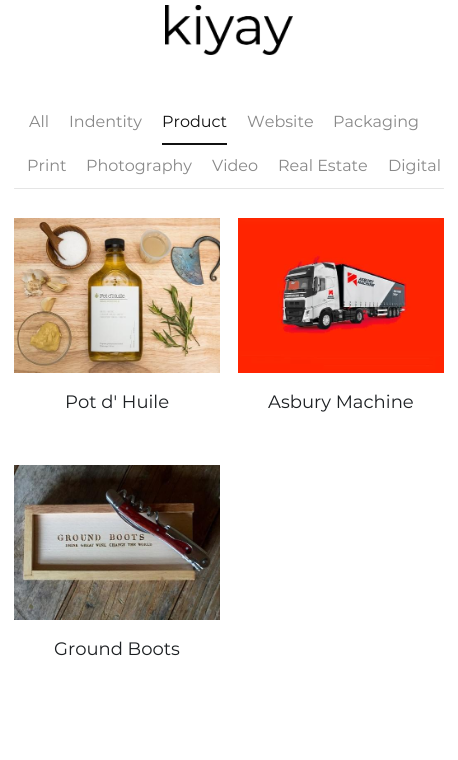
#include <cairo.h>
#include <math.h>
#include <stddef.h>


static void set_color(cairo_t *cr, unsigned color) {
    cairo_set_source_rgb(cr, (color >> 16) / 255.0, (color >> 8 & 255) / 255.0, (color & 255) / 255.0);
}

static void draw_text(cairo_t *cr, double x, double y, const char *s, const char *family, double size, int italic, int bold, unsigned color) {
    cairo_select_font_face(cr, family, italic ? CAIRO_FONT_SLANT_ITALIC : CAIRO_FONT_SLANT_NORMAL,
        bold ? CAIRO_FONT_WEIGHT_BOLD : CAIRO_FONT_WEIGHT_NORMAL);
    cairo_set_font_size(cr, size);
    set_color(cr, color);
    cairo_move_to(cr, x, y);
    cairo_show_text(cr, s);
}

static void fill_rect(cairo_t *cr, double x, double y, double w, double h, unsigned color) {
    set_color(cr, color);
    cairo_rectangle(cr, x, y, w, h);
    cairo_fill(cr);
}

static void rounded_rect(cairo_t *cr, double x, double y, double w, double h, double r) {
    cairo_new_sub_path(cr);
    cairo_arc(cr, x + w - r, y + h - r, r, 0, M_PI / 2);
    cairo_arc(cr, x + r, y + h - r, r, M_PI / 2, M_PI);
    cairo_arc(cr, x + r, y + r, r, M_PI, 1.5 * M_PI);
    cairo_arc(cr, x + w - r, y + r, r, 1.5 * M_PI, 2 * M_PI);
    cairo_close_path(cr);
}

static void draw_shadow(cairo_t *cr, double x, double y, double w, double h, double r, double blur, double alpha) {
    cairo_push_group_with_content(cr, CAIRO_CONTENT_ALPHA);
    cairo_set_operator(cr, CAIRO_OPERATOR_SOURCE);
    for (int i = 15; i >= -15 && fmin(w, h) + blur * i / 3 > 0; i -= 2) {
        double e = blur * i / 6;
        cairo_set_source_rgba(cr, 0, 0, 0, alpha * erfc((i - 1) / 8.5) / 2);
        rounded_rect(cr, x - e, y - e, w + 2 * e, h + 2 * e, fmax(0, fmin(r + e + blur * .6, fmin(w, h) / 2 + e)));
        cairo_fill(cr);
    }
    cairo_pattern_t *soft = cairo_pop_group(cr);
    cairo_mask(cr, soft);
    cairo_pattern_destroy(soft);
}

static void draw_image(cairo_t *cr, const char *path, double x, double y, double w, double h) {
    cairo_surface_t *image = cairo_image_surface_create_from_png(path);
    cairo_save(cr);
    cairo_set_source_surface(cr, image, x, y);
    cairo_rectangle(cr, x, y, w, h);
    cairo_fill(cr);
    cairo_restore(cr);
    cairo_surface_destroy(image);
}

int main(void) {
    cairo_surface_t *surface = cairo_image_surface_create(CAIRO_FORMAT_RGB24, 458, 760);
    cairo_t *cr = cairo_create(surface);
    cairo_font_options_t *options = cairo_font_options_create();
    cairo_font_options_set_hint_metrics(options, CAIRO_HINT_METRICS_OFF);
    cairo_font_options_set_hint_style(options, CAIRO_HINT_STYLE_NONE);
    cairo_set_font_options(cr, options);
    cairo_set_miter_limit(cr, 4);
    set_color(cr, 0xFFFFFF);
    cairo_paint(cr);
    draw_image(cr, "assets/img1.png", 165, 5, 128, 50);
    cairo_save(cr);
    cairo_rectangle(cr, 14, 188, 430, 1);
    cairo_clip(cr);
    set_color(cr, 0x000000);
    draw_shadow(cr, 14, 101, 430, 88, 0, 0.5, 0.12);
    cairo_restore(cr);
    draw_text(cr, 29, 127, "All", "Montserrat", 16, 0, 0, 0x888888);
    draw_text(cr, 69, 127, "Indentity", "Montserrat", 16, 0, 0, 0x888888);
    draw_text(cr, 162, 127, "Product", "Montserrat", 16, 0, 0, 0x111111);
    fill_rect(cr, 162, 143, 65, 2, 0x111111);
    draw_text(cr, 247, 127, "Website", "Montserrat", 16, 0, 0, 0x888888);
    draw_text(cr, 333, 127, "Packaging", "Montserrat", 16, 0, 0, 0x888888);
    draw_text(cr, 27, 171, "Print", "Montserrat", 16, 0, 0, 0x888888);
    draw_text(cr, 86, 171, "Photography", "Montserrat", 16, 0, 0, 0x888888);
    draw_text(cr, 212, 171, "Video", "Montserrat", 16, 0, 0, 0x888888);
    draw_text(cr, 278, 171, "Real Estate", "Montserrat", 16, 0, 0, 0x888888);
    draw_text(cr, 388, 171, "Digital", "Montserrat", 16, 0, 0, 0x888888);
    draw_image(cr, "assets/img2.png", 14, 218, 206, 155);
    draw_text(cr, 65, 408, "Pot d' Huile", "Montserrat", 18, 0, 0, 0x1D2023);
    draw_image(cr, "assets/img3.png", 238, 218, 206, 155);
    draw_text(cr, 268, 408, "Asbury Machine", "Montserrat", 18, 0, 0, 0x1D2023);
    draw_image(cr, "assets/img4.png", 14, 465, 206, 155);
    draw_text(cr, 54, 655, "Ground Boots", "Montserrat", 18, 0, 0, 0x1D2023);
    cairo_surface_write_to_png(surface, "output.png");
    cairo_font_options_destroy(options);
    cairo_destroy(cr);
    cairo_surface_destroy(surface);
    return 0;
}
